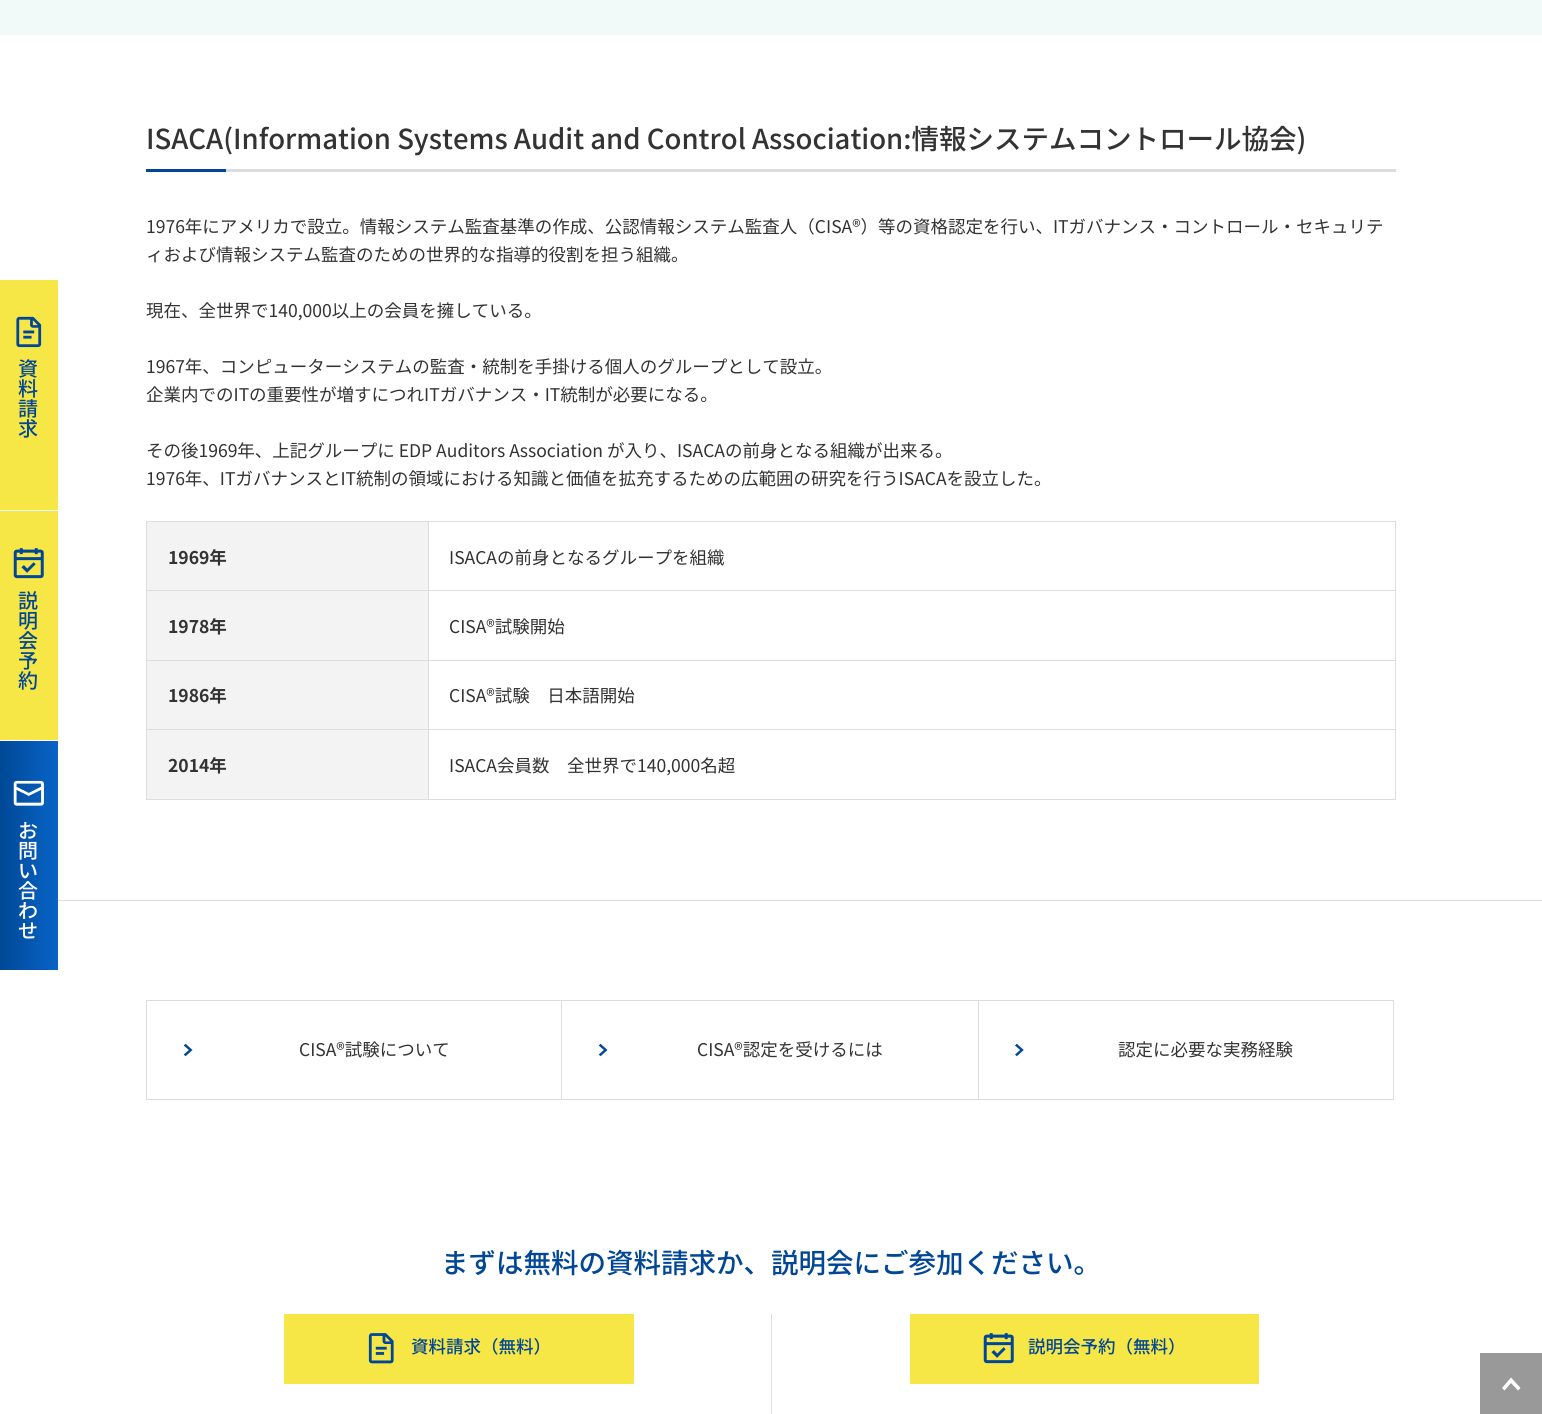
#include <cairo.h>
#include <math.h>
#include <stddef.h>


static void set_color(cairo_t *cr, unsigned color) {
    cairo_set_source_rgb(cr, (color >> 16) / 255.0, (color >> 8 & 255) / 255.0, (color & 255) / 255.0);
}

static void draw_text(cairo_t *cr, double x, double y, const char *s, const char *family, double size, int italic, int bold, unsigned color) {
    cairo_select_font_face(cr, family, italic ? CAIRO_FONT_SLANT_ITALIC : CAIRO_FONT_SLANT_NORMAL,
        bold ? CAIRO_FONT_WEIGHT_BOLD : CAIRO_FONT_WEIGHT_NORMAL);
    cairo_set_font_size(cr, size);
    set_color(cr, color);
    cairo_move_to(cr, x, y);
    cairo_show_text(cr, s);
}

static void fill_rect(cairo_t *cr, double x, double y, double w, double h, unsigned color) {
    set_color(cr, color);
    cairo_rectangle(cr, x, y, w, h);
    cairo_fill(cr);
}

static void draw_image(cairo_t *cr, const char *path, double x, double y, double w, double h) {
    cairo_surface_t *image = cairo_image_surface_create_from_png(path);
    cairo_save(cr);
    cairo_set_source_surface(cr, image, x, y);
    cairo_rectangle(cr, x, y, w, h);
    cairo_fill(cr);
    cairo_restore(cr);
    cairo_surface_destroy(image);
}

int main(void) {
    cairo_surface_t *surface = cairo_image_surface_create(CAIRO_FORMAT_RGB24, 1542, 1414);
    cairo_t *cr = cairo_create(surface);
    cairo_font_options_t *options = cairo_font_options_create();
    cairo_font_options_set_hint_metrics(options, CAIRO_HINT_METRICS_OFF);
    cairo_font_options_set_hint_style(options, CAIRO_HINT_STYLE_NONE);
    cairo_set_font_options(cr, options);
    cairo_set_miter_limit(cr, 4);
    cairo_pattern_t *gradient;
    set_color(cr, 0xFFFFFF);
    cairo_paint(cr);
    fill_rect(cr, 0, 280, 58, 230, 0xF6E746);
    draw_image(cr, "assets/img1.png", 16, 316, 26, 32);
    draw_text(cr, 18, 376, "資", "Noto Sans JP Medium", 20, 0, 0, 0x024796);
    draw_text(cr, 18, 396, "料", "Noto Sans JP Medium", 20, 0, 0, 0x024796);
    draw_text(cr, 18, 416, "請", "Noto Sans JP Medium", 20, 0, 0, 0x024796);
    draw_text(cr, 18, 436, "求", "Noto Sans JP Medium", 20, 0, 0, 0x024796);
    fill_rect(cr, 0, 511, 58, 229, 0xF6E746);
    draw_image(cr, "assets/img2.png", 13, 548, 31, 31);
    draw_text(cr, 18, 608, "説", "Noto Sans JP Medium", 20, 0, 0, 0x024796);
    draw_text(cr, 18, 628, "明", "Noto Sans JP Medium", 20, 0, 0, 0x024796);
    draw_text(cr, 18, 648, "会", "Noto Sans JP Medium", 20, 0, 0, 0x024796);
    draw_text(cr, 18, 668, "予", "Noto Sans JP Medium", 20, 0, 0, 0x024796);
    draw_text(cr, 18, 688, "約", "Noto Sans JP Medium", 20, 0, 0, 0x024796);
    gradient = cairo_pattern_create_linear(0, 856, 58, 856);
    cairo_pattern_add_color_stop_rgba(gradient, 0, 0, 0.282, 0.588, 1);
    cairo_pattern_add_color_stop_rgba(gradient, 1, 0.031, 0.392, 0.78, 1);
    cairo_set_source(cr, gradient);
    cairo_pattern_destroy(gradient);
    cairo_rectangle(cr, 0, 741, 58, 229);
    cairo_fill(cr);
    draw_image(cr, "assets/img3.png", 13, 780, 31, 26);
    draw_text(cr, 18, 838, "お", "Noto Sans JP Medium", 20, 0, 0, 0xFFFFFF);
    draw_text(cr, 18, 858, "問", "Noto Sans JP Medium", 20, 0, 0, 0xFFFFFF);
    draw_text(cr, 18, 878, "い", "Noto Sans JP Medium", 20, 0, 0, 0xFFFFFF);
    draw_text(cr, 18, 898, "合", "Noto Sans JP Medium", 20, 0, 0, 0xFFFFFF);
    draw_text(cr, 18, 918, "わ", "Noto Sans JP Medium", 20, 0, 0, 0xFFFFFF);
    draw_text(cr, 18, 938, "せ", "Noto Sans JP Medium", 20, 0, 0, 0xFFFFFF);
    fill_rect(cr, 1480, 1353, 62, 61, 0x999999);
    set_color(cr, 0xFFFFFF);
    cairo_new_path(cr);
    cairo_move_to(cr, 1511, 1377.5);
    cairo_line_to(cr, 1502, 1388);
    cairo_line_to(cr, 1504.5, 1390.5);
    cairo_line_to(cr, 1511, 1383);
    cairo_line_to(cr, 1518, 1390.5);
    cairo_line_to(cr, 1520.5, 1388);
    cairo_close_path(cr);
    cairo_fill(cr);
    fill_rect(cr, 0, 0, 1542, 35, 0xF1FAF8);
    fill_rect(cr, 226, 169, 1170, 3, 0xDDDDDD);
    draw_text(cr, 146, 149, "ISACA(Information Systems Audit and Control Association:情報システムコントロール協会)", "Noto Sans JP Medium", 27.5, 0, 0, 0x333333);
    fill_rect(cr, 146, 169, 80, 3, 0x024796);
    draw_text(cr, 146, 233, "1976年にアメリカで設立。情報システム監査基準の作成、公認情報システム監査人（CISA®）等の資格認定を行い、ITガバナンス・コントロール・セキュリテ", "Noto Sans JP", 17.5, 0, 0, 0x333333);
    draw_text(cr, 146, 261, "ィおよび情報システム監査のための世界的な指導的役割を担う組織。", "Noto Sans JP", 17.5, 0, 0, 0x333333);
    draw_text(cr, 146, 317, "現在、全世界で140,000以上の会員を擁している。", "Noto Sans JP", 17.5, 0, 0, 0x333333);
    draw_text(cr, 146, 373, "1967年、コンピューターシステムの監査・統制を手掛ける個人のグループとして設立。", "Noto Sans JP", 17.5, 0, 0, 0x333333);
    draw_text(cr, 146, 401, "企業内でのITの重要性が増すにつれITガバナンス・IT統制が必要になる。", "Noto Sans JP", 17.5, 0, 0, 0x333333);
    draw_text(cr, 146, 457, "その後1969年、上記グループに EDP Auditors Association が入り、ISACAの前身となる組織が出来る。", "Noto Sans JP", 17.5, 0, 0, 0x333333);
    draw_text(cr, 146, 485, "1976年、ITガバナンスとIT統制の領域における知識と価値を拡充するための広範囲の研究を行うISACAを設立した。", "Noto Sans JP", 17.5, 0, 0, 0x333333);
    set_color(cr, 0xF3F3F3);
    cairo_rectangle(cr, 146.5, 521.5, 282, 69);
    cairo_fill_preserve(cr);
    set_color(cr, 0xDDDDDD);
    cairo_set_line_width(cr, 1);
    cairo_stroke(cr);
    draw_text(cr, 168, 564, "1969年", "Noto Sans JP", 17.5, 0, 1, 0x333333);
    cairo_rectangle(cr, 428.5, 521.5, 967, 69);
    set_color(cr, 0xDDDDDD);
    cairo_stroke(cr);
    draw_text(cr, 449, 564, "ISACAの前身となるグループを組織", "Noto Sans JP", 17.5, 0, 0, 0x333333);
    set_color(cr, 0xF3F3F3);
    cairo_rectangle(cr, 146.5, 590.5, 282, 70);
    cairo_fill_preserve(cr);
    set_color(cr, 0xDDDDDD);
    cairo_stroke(cr);
    draw_text(cr, 168, 633, "1978年", "Noto Sans JP", 17.5, 0, 1, 0x333333);
    cairo_rectangle(cr, 428.5, 590.5, 967, 70);
    set_color(cr, 0xDDDDDD);
    cairo_stroke(cr);
    draw_text(cr, 449, 633, "CISA®試験開始", "Noto Sans JP", 17.5, 0, 0, 0x333333);
    set_color(cr, 0xF3F3F3);
    cairo_rectangle(cr, 146.5, 660.5, 282, 69);
    cairo_fill_preserve(cr);
    set_color(cr, 0xDDDDDD);
    cairo_stroke(cr);
    draw_text(cr, 168, 702, "1986年", "Noto Sans JP", 17.5, 0, 1, 0x333333);
    cairo_rectangle(cr, 428.5, 660.5, 967, 69);
    set_color(cr, 0xDDDDDD);
    cairo_stroke(cr);
    draw_text(cr, 449, 702, "CISA®試験　日本語開始", "Noto Sans JP", 17.5, 0, 0, 0x333333);
    set_color(cr, 0xF3F3F3);
    cairo_rectangle(cr, 146.5, 729.5, 282, 70);
    cairo_fill_preserve(cr);
    set_color(cr, 0xDDDDDD);
    cairo_stroke(cr);
    draw_text(cr, 168, 772, "2014年", "Noto Sans JP", 17.5, 0, 1, 0x333333);
    cairo_rectangle(cr, 428.5, 729.5, 967, 70);
    set_color(cr, 0xDDDDDD);
    cairo_stroke(cr);
    draw_text(cr, 449, 772, "ISACA会員数　全世界で140,000名超", "Noto Sans JP", 17.5, 0, 0, 0x333333);
    fill_rect(cr, 58, 900, 1484, 1, 0xDDDDDD);
    cairo_rectangle(cr, 146.5, 1000.5, 416, 99);
    cairo_stroke(cr);
    draw_image(cr, "assets/img4.png", 183, 1043, 10, 14);
    draw_text(cr, 299, 1056, "CISA®試験について", "Noto Sans JP", 17.5, 0, 0, 0x333333);
    fill_rect(cr, 562, 1001, 1, 98, 0xFFFFFF);
    cairo_rectangle(cr, 561.5, 1000.5, 417, 99);
    set_color(cr, 0xDDDDDD);
    cairo_stroke(cr);
    draw_image(cr, "assets/img4.png", 598, 1043, 10, 14);
    draw_text(cr, 697, 1056, "CISA®認定を受けるには", "Noto Sans JP", 17.5, 0, 0, 0x333333);
    cairo_rectangle(cr, 978.5, 1000.5, 415, 99);
    set_color(cr, 0xDDDDDD);
    cairo_stroke(cr);
    draw_image(cr, "assets/img5.png", 1015, 1043, 9, 14);
    draw_text(cr, 1118, 1056, "認定に必要な実務経験", "Noto Sans JP", 17.5, 0, 0, 0x333333);
    draw_text(cr, 441, 1273, "まずは無料の資料請求か、説明会にご参加ください。", "Noto Sans JP Medium", 27.5, 0, 0, 0x024796);
    fill_rect(cr, 284, 1314, 350, 70, 0xF6E746);
    draw_image(cr, "assets/img6.png", 368, 1333, 26, 31);
    draw_text(cr, 411, 1353, "資料請求（無料）", "Noto Sans JP Medium", 17.5, 0, 0, 0x024796);
    fill_rect(cr, 771, 1314, 1, 100, 0xDDDDDD);
    fill_rect(cr, 910, 1314, 349, 70, 0xF6E746);
    draw_image(cr, "assets/img2.png", 983, 1333, 31, 31);
    draw_text(cr, 1028, 1353, "説明会予約（無料）", "Noto Sans JP Medium", 17.5, 0, 0, 0x024796);
    cairo_surface_write_to_png(surface, "output.png");
    cairo_font_options_destroy(options);
    cairo_destroy(cr);
    cairo_surface_destroy(surface);
    return 0;
}
